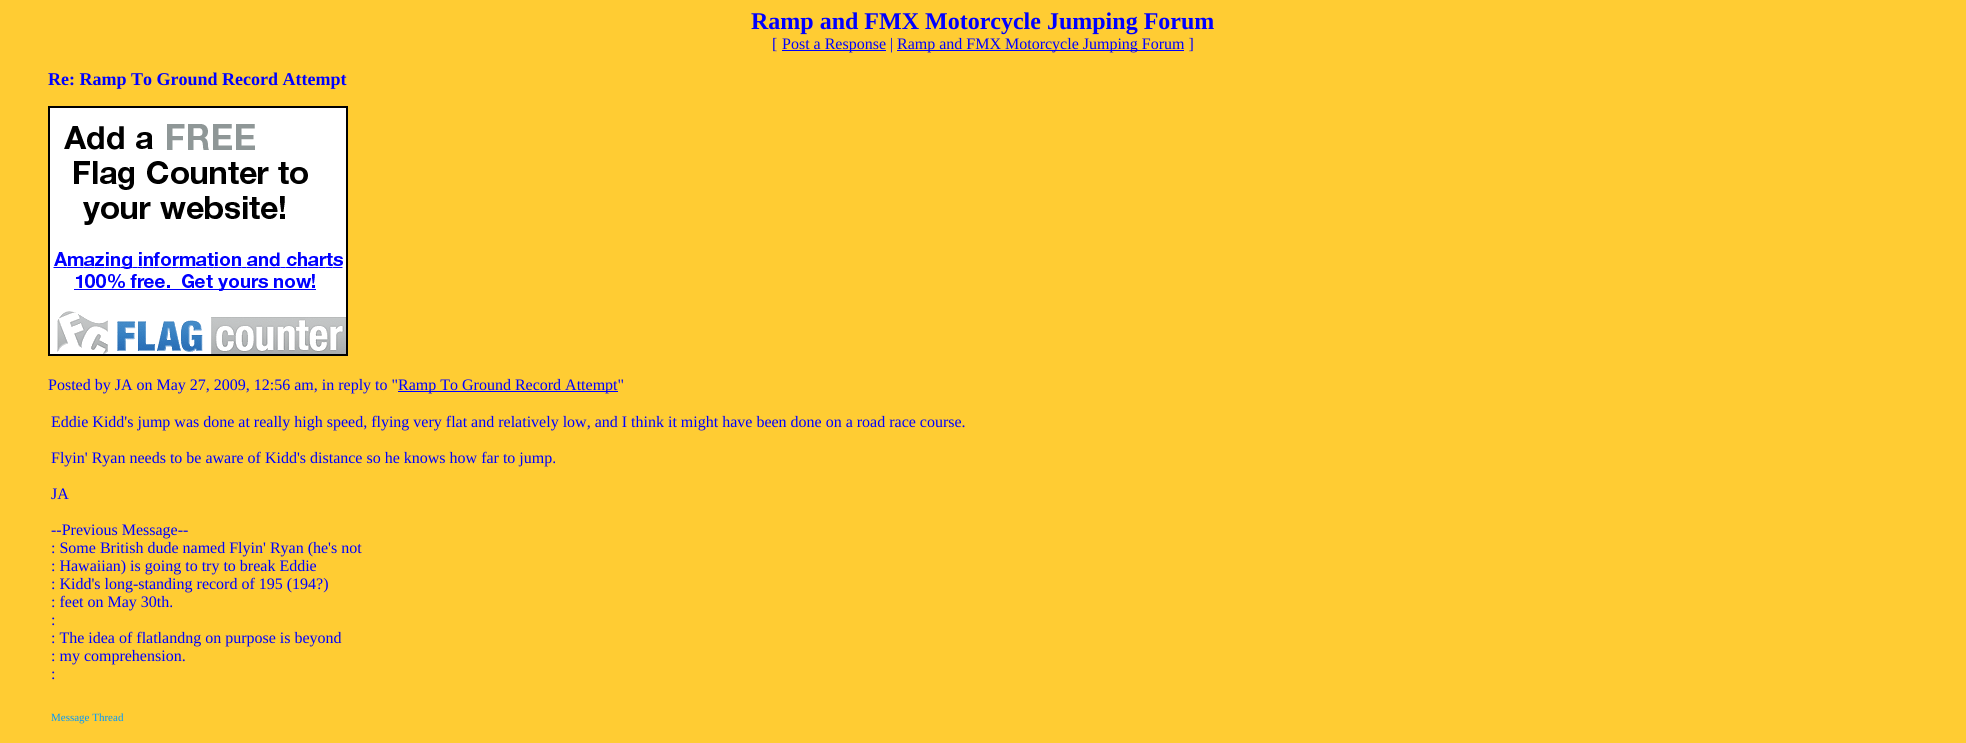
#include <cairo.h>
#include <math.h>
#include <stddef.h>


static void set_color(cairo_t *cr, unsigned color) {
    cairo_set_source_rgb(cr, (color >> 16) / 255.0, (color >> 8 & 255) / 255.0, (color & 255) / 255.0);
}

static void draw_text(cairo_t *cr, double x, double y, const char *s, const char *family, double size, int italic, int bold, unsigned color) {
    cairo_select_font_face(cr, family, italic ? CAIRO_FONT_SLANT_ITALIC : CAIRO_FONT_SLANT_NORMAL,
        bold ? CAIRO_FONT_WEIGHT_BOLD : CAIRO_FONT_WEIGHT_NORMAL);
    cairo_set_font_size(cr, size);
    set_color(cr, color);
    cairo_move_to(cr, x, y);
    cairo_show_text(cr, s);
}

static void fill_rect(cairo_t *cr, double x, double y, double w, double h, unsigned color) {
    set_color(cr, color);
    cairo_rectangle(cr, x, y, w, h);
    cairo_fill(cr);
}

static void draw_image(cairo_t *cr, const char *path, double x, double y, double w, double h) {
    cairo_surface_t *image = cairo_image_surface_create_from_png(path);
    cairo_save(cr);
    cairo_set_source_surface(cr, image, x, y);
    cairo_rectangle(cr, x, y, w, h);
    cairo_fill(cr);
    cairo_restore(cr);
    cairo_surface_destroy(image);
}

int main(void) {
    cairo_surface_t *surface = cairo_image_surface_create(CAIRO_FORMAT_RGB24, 1966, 743);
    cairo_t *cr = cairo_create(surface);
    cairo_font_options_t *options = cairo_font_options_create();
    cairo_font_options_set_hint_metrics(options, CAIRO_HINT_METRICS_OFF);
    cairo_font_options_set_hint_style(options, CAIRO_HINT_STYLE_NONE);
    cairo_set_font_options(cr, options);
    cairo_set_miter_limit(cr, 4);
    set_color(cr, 0xFFCC33);
    cairo_paint(cr);
    draw_text(cr, 751, 29, "Ramp and FMX Motorcycle Jumping Forum", "Liberation Serif", 24, 0, 1, 0x0000FF);
    draw_text(cr, 772, 49, "[", "Liberation Serif", 16, 0, 0, 0x0000FF);
    fill_rect(cr, 782, 50, 104, 1, 0x0000FF);
    draw_text(cr, 782, 49, "Post a Response |", "Liberation Serif", 16, 0, 0, 0x0000FF);
    fill_rect(cr, 897, 50, 287, 1, 0x0000FF);
    draw_text(cr, 897, 49, "Ramp and FMX Motorcycle Jumping Forum ]", "Liberation Serif", 16, 0, 0, 0x0000FF);
    draw_text(cr, 48, 85, "Re: Ramp To Ground Record Attempt", "Liberation Serif", 18, 0, 1, 0x0000FF);
    draw_image(cr, "assets/img1.png", 48, 106, 300, 250);
    draw_text(cr, 48, 390, "Posted by JA on May 27, 2009, 12:56 am, in reply to \"", "Liberation Serif", 16, 0, 0, 0x0000FF);
    fill_rect(cr, 398, 391, 220, 1, 0x0000FF);
    draw_text(cr, 398, 390, "Ramp To Ground Record Attempt\"", "Liberation Serif", 16, 0, 0, 0x0000FF);
    draw_text(cr, 51, 427, "Eddie Kidd's jump was done at really high speed, flying very flat and relatively low, and I think it might have been done on a road race course.", "Liberation Serif", 16, 0, 0, 0x0000FF);
    draw_text(cr, 51, 463, "Flyin' Ryan needs to be aware of Kidd's distance so he knows how far to jump.", "Liberation Serif", 16, 0, 0, 0x0000FF);
    draw_text(cr, 51, 499, "JA", "Liberation Serif", 16, 0, 0, 0x0000FF);
    draw_text(cr, 51, 535, "--Previous Message--", "Liberation Serif", 16, 0, 0, 0x0000FF);
    draw_text(cr, 51, 553, ": Some British dude named Flyin' Ryan (he's not", "Liberation Serif", 16, 0, 0, 0x0000FF);
    draw_text(cr, 51, 571, ": Hawaiian) is going to try to break Eddie", "Liberation Serif", 16, 0, 0, 0x0000FF);
    draw_text(cr, 51, 589, ": Kidd's long-standing record of 195 (194?)", "Liberation Serif", 16, 0, 0, 0x0000FF);
    draw_text(cr, 51, 607, ": feet on May 30th.", "Liberation Serif", 16, 0, 0, 0x0000FF);
    draw_text(cr, 51, 625, ":", "Liberation Serif", 16, 0, 0, 0x0000FF);
    draw_text(cr, 51, 643, ": The idea of flatlandng on purpose is beyond", "Liberation Serif", 16, 0, 0, 0x0000FF);
    draw_text(cr, 51, 661, ": my comprehension.", "Liberation Serif", 16, 0, 0, 0x0000FF);
    draw_text(cr, 51, 679, ":", "Liberation Serif", 16, 0, 0, 0x0000FF);
    draw_text(cr, 51, 721, "Message Thread", "Liberation Serif", 11, 0, 0, 0x0099FF);
    cairo_surface_write_to_png(surface, "output.png");
    cairo_font_options_destroy(options);
    cairo_destroy(cr);
    cairo_surface_destroy(surface);
    return 0;
}
